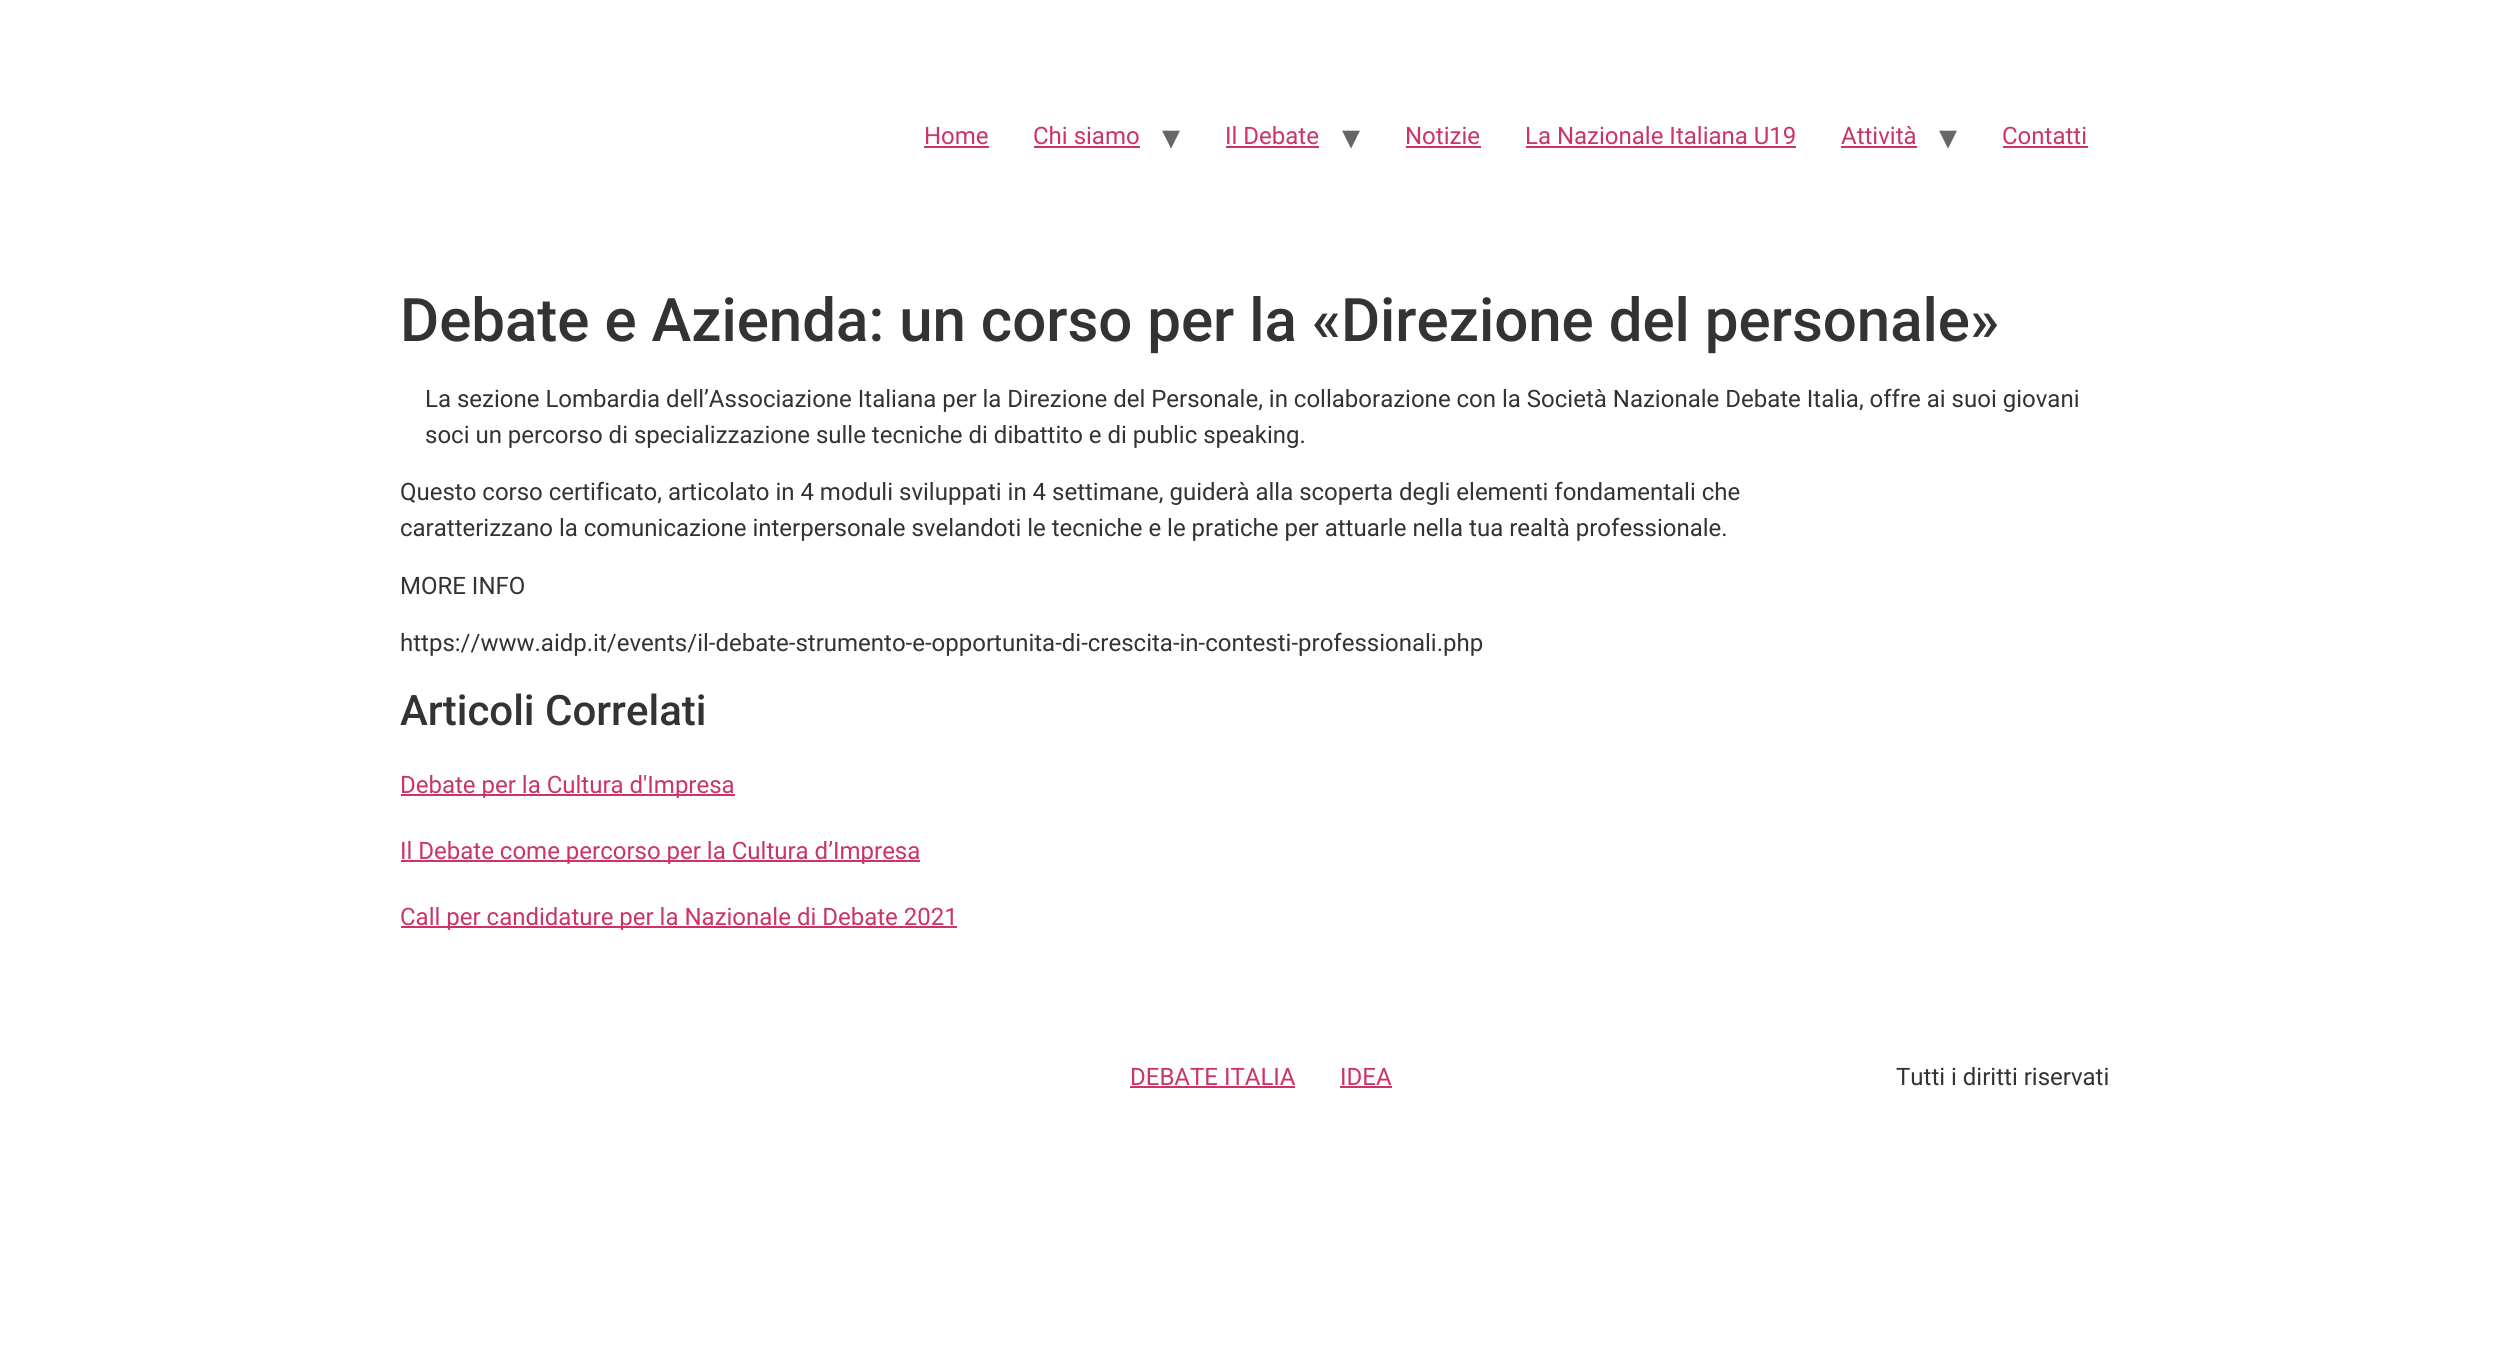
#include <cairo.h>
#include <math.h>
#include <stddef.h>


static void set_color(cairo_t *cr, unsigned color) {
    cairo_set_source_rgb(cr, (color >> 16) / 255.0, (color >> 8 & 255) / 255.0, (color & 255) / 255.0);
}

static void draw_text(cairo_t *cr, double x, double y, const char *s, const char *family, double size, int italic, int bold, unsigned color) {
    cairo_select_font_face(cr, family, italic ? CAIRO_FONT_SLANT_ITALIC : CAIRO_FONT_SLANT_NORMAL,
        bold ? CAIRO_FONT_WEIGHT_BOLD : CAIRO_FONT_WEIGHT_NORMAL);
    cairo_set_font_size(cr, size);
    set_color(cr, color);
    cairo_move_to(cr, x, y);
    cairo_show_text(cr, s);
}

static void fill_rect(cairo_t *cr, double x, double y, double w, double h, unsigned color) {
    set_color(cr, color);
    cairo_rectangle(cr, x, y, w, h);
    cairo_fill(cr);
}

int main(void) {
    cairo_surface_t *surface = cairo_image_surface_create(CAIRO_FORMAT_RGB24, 2509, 1372);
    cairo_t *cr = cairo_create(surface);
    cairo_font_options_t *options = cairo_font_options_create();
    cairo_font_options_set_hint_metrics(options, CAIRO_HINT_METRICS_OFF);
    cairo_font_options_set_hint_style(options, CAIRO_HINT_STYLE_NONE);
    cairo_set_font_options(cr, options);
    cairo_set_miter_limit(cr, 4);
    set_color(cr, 0xFFFFFF);
    cairo_paint(cr);
    draw_text(cr, 924, 144, "Home", "Roboto", 24, 0, 0, 0xCC3366);
    fill_rect(cr, 924, 146, 65, 2, 0xCC3366);
    draw_text(cr, 1033, 144, "Chi siamo", "Roboto", 24, 0, 0, 0xCC3366);
    fill_rect(cr, 1034, 146, 106, 2, 0xCC3366);
    draw_text(cr, 1162, 149, "▾", "DejaVu Sans", 36, 0, 0, 0x666666);
    draw_text(cr, 1225, 144, "Il Debate", "Roboto", 24, 0, 0, 0xCC3366);
    fill_rect(cr, 1226, 146, 93, 2, 0xCC3366);
    draw_text(cr, 1342, 149, "▾", "DejaVu Sans", 36, 0, 0, 0x666666);
    draw_text(cr, 1405, 144, "Notizie", "Roboto", 24, 0, 0, 0xCC3366);
    fill_rect(cr, 1406, 146, 75, 2, 0xCC3366);
    draw_text(cr, 1525, 144, "La Nazionale Italiana U19", "Roboto", 24, 0, 0, 0xCC3366);
    fill_rect(cr, 1526, 146, 270, 2, 0xCC3366);
    draw_text(cr, 1841, 144, "Attività", "Roboto", 24, 0, 0, 0xCC3366);
    fill_rect(cr, 1841, 146, 76, 2, 0xCC3366);
    draw_text(cr, 1939, 149, "▾", "DejaVu Sans", 36, 0, 0, 0x666666);
    draw_text(cr, 2002, 144, "Contatti", "Roboto", 24, 0, 0, 0xCC3366);
    fill_rect(cr, 2003, 146, 85, 2, 0xCC3366);
    draw_text(cr, 400, 341, "Debate e Azienda: un corso per la «Direzione del personale»", "Roboto Medium", 60, 0, 0, 0x333333);
    draw_text(cr, 425, 407, "La sezione Lombardia dell’Associazione Italiana per la Direzione del Personale, in collaborazione con la Società Nazionale Debate Italia, offre ai suoi giovani", "Roboto", 24, 0, 0, 0x333333);
    draw_text(cr, 425, 443, "soci un percorso di specializzazione sulle tecniche di dibattito e di public speaking.", "Roboto", 24, 0, 0, 0x333333);
    draw_text(cr, 400, 500, "Questo corso certificato, articolato in 4 moduli sviluppati in 4 settimane, guiderà alla scoperta degli elementi fondamentali che", "Roboto", 24, 0, 0, 0x333333);
    draw_text(cr, 400, 536, "caratterizzano la comunicazione interpersonale svelandoti le tecniche e le pratiche per attuarle nella tua realtà professionale.", "Roboto", 24, 0, 0, 0x333333);
    draw_text(cr, 400, 594, "MORE INFO", "Roboto", 24, 0, 0, 0x333333);
    draw_text(cr, 400, 651, "https://www.aidp.it/events/il-debate-strumento-e-opportunita-di-crescita-in-contesti-professionali.php", "Roboto", 24, 0, 0, 0x333333);
    draw_text(cr, 400, 725, "Articoli Correlati", "Roboto Medium", 42, 0, 0, 0x333333);
    fill_rect(cr, 401, 794, 334, 2, 0xCC3366);
    draw_text(cr, 400, 793, "Debate per la Cultura d'Impresa", "Roboto", 24, 0, 0, 0xCC3366);
    fill_rect(cr, 401, 860, 519, 2, 0xCC3366);
    draw_text(cr, 400, 859, "Il Debate come percorso per la Cultura d’Impresa", "Roboto", 24, 0, 0, 0xCC3366);
    fill_rect(cr, 401, 926, 556, 2, 0xCC3366);
    draw_text(cr, 400, 925, "Call per candidature per la Nazionale di Debate 2021", "Roboto", 24, 0, 0, 0xCC3366);
    draw_text(cr, 1130, 1085, "DEBATE ITALIA", "Roboto", 24, 0, 0, 0xCC3366);
    fill_rect(cr, 1130, 1086, 165, 2, 0xCC3366);
    draw_text(cr, 1340, 1085, "IDEA", "Roboto", 24, 0, 0, 0xCC3366);
    fill_rect(cr, 1340, 1086, 52, 2, 0xCC3366);
    draw_text(cr, 1896, 1085, "Tutti i diritti riservati", "Roboto", 24, 0, 0, 0x333333);
    cairo_surface_write_to_png(surface, "output.png");
    cairo_font_options_destroy(options);
    cairo_destroy(cr);
    cairo_surface_destroy(surface);
    return 0;
}
